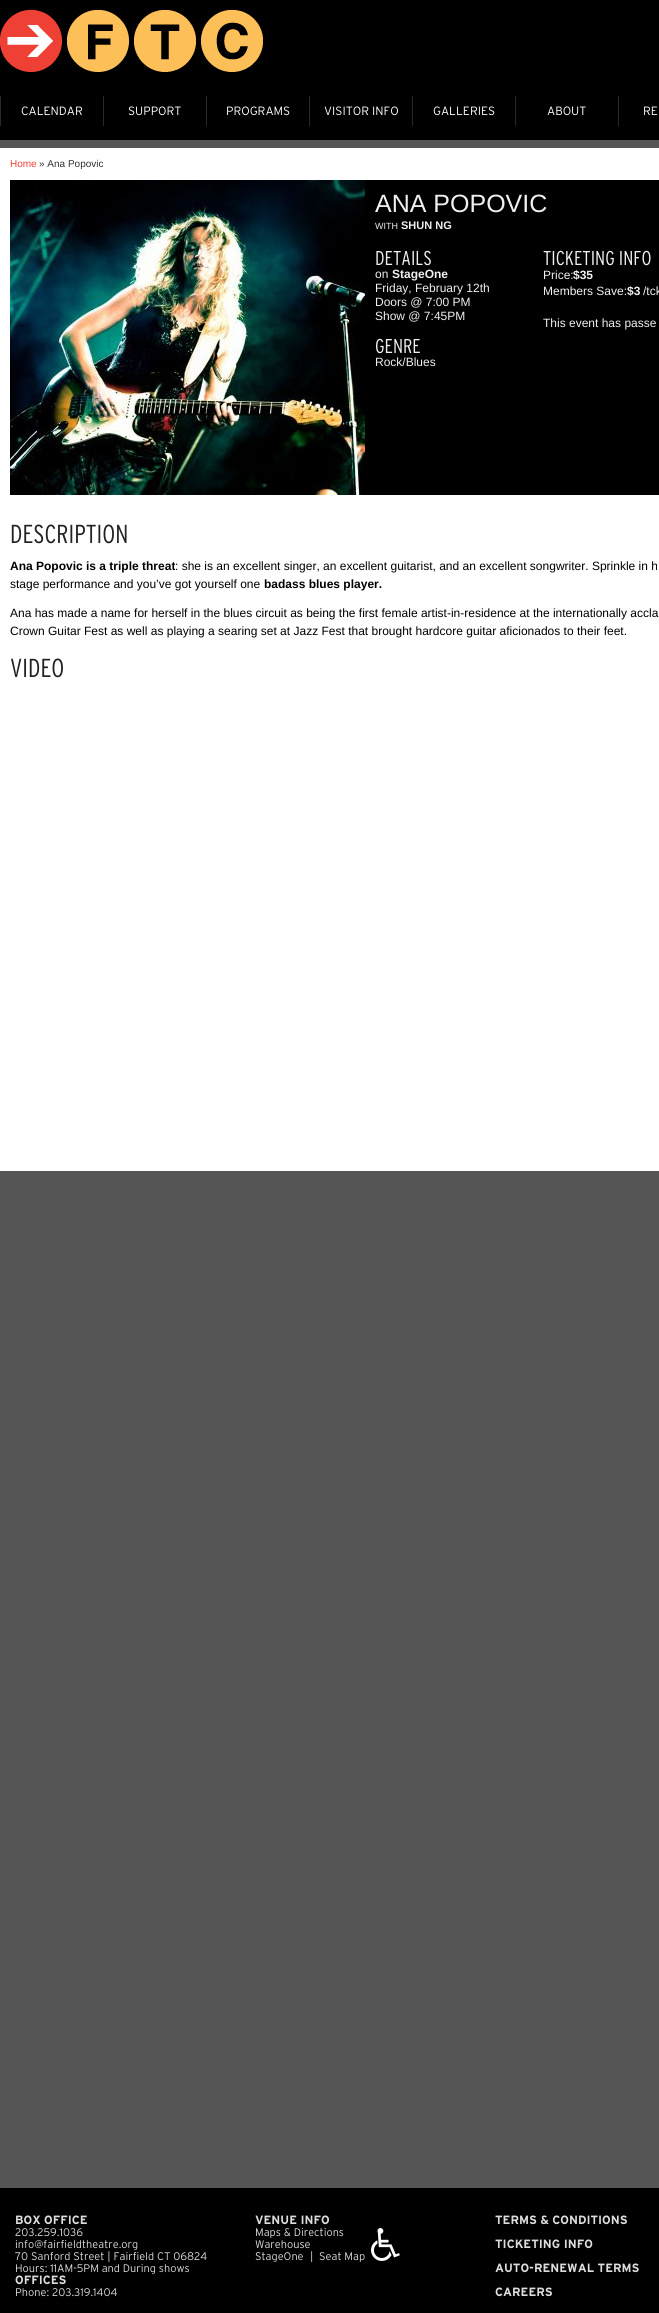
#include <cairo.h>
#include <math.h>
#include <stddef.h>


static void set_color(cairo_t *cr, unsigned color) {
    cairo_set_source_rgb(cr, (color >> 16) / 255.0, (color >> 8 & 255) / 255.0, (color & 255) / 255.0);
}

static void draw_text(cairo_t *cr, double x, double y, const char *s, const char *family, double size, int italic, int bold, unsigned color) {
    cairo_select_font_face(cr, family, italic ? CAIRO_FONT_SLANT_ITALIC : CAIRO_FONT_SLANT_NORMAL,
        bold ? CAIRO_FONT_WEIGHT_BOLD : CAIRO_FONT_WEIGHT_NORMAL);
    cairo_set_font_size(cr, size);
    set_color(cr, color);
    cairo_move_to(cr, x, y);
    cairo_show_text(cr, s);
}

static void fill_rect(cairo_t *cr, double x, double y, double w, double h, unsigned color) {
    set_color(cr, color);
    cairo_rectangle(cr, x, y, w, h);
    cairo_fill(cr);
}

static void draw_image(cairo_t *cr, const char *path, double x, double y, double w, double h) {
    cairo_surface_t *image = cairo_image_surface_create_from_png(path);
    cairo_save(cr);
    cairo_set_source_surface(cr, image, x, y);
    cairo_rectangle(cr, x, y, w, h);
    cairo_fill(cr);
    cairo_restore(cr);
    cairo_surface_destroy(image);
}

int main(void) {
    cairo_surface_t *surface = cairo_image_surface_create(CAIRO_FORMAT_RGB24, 659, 2313);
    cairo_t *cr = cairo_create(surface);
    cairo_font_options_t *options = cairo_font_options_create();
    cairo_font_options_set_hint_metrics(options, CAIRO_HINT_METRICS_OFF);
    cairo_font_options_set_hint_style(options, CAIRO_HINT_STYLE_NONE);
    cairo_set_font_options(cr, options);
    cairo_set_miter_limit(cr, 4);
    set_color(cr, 0x555555);
    cairo_paint(cr);
    fill_rect(cr, 0, 0, 659, 140, 0x000000);
    draw_image(cr, "assets/img1.png", 0, 10, 263, 62);
    fill_rect(cr, 0, 96, 1, 30, 0x292929);
    draw_text(cr, 21, 115, "CALENDAR", "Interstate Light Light", 12, 0, 0, 0xFFFFFF);
    fill_rect(cr, 103, 96, 1, 30, 0x292929);
    draw_text(cr, 128, 115, "SUPPORT", "Interstate Light Light", 12, 0, 0, 0xFFFFFF);
    fill_rect(cr, 206, 96, 1, 30, 0x292929);
    draw_text(cr, 226, 115, "PROGRAMS", "Interstate Light Light", 12, 0, 0, 0xFFFFFF);
    fill_rect(cr, 309, 96, 1, 30, 0x292929);
    draw_text(cr, 324, 115, "VISITOR INFO", "Interstate Light Light", 12, 0, 0, 0xFFFFFF);
    fill_rect(cr, 412, 96, 1, 30, 0x292929);
    draw_text(cr, 433, 115, "GALLERIES", "Interstate Light Light", 12, 0, 0, 0xFFFFFF);
    fill_rect(cr, 515, 96, 1, 30, 0x292929);
    draw_text(cr, 547, 115, "ABOUT", "Interstate Light Light", 12, 0, 0, 0xFFFFFF);
    fill_rect(cr, 618, 96, 1, 30, 0x292929);
    draw_text(cr, 643, 115, "RE", "Interstate Light Light", 12, 0, 0, 0xFFFFFF);
    fill_rect(cr, 0, 148, 659, 1023, 0xFFFFFF);
    draw_text(cr, 10, 167, "Home", "Liberation Sans", 10, 0, 0, 0xEF4035);
    draw_text(cr, 39, 167, "» Ana Popovic", "Liberation Sans", 10, 0, 0, 0x323232);
    fill_rect(cr, 365, 180, 294, 315, 0x000000);
    draw_image(cr, "assets/img2.png", 10, 180, 355, 315);
    draw_text(cr, 375, 212, "ANA POPOVIC", "Liberation Sans", 25, 0, 0, 0xF0F0F0);
    draw_text(cr, 375, 229, "WITH", "Liberation Sans", 9, 0, 0, 0xF0F0F0);
    draw_text(cr, 401, 229, "SHUN NG", "Liberation Sans", 11, 0, 1, 0xF0F0F0);
    draw_text(cr, 375, 265, "DETAILS", "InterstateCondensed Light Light", 20, 0, 0, 0xF0F0F0);
    draw_text(cr, 375, 278, "on", "Liberation Sans", 12, 0, 0, 0xF0F0F0);
    draw_text(cr, 392, 278, "StageOne", "Liberation Sans", 12, 0, 1, 0xF0F0F0);
    draw_text(cr, 375, 292, "Friday, February 12th", "Liberation Sans", 12, 0, 0, 0xF0F0F0);
    draw_text(cr, 375, 306, "Doors @ 7:00 PM", "Liberation Sans", 12, 0, 0, 0xF0F0F0);
    draw_text(cr, 375, 320, "Show @ 7:45PM", "Liberation Sans", 12, 0, 0, 0xF0F0F0);
    draw_text(cr, 375, 353, "GENRE", "InterstateCondensed Light Light", 20, 0, 0, 0xF0F0F0);
    draw_text(cr, 375, 366, "Rock/Blues", "Liberation Sans", 12, 0, 0, 0xF0F0F0);
    draw_text(cr, 543, 265, "TICKETING INFO", "InterstateCondensed Light Light", 20, 0, 0, 0xF0F0F0);
    draw_text(cr, 543, 279, "Price:", "Liberation Sans", 12, 0, 0, 0xF0F0F0);
    draw_text(cr, 573, 279, "$35", "Liberation Sans", 12, 0, 1, 0xF0F0F0);
    draw_text(cr, 543, 295, "Members Save:", "Liberation Sans", 12, 0, 0, 0xF0F0F0);
    draw_text(cr, 627, 295, "$3", "Liberation Sans", 12, 0, 1, 0xF0F0F0);
    draw_text(cr, 643, 295, "/tck", "Liberation Sans", 12, 0, 0, 0xF0F0F0);
    draw_text(cr, 543, 327, "This event has passe", "Liberation Sans", 12, 0, 0, 0xF0F0F0);
    draw_text(cr, 10, 543, "DESCRIPTION", "InterstateCondensed Light Light", 26, 0, 0, 0x222222);
    draw_text(cr, 10, 570, "Ana Popovic is a triple threat", "Liberation Sans", 12, 0, 1, 0x000000);
    draw_text(cr, 175, 570, ": she is an excellent singer, an excellent guitarist, and an excellent songwriter. Sprinkle in h", "Liberation Sans", 12, 0, 0, 0x000000);
    draw_text(cr, 10, 588, "stage performance and you’ve got yourself one", "Liberation Sans", 12, 0, 0, 0x000000);
    draw_text(cr, 264, 588, "badass blues player.", "Liberation Sans", 12, 0, 1, 0x000000);
    draw_text(cr, 10, 617, "Ana has made a name for herself in the blues circuit as being the first female artist-in-residence at the internationally accla", "Liberation Sans", 12, 0, 0, 0x000000);
    draw_text(cr, 10, 635, "Crown Guitar Fest as well as playing a searing set at Jazz Fest that brought hardcore guitar aficionados to their feet.", "Liberation Sans", 12, 0, 0, 0x000000);
    draw_text(cr, 10, 677, "VIDEO", "InterstateCondensed Light Light", 26, 0, 0, 0x222222);
    fill_rect(cr, 0, 2188, 659, 125, 0x000000);
    draw_text(cr, 15, 2224, "BOX OFFICE", "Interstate", 12, 0, 1, 0xDDDDDD);
    draw_text(cr, 15, 2236, "203.259.1036", "Interstate Light Light", 11, 0, 0, 0xDDDDDD);
    draw_text(cr, 15, 2248, "info@fairfieldtheatre.org", "Interstate Light Light", 11, 0, 0, 0xDDDDDD);
    draw_text(cr, 15, 2260, "70 Sanford Street | Fairfield CT 06824", "Interstate Light Light", 11, 0, 0, 0xDDDDDD);
    draw_text(cr, 15, 2272, "Hours: 11AM-5PM and During shows", "Interstate Light Light", 11, 0, 0, 0xDDDDDD);
    draw_text(cr, 15, 2284, "OFFICES", "Interstate", 12, 0, 1, 0xDDDDDD);
    draw_text(cr, 15, 2296, "Phone: 203.319.1404", "Interstate Light Light", 11, 0, 0, 0xDDDDDD);
    draw_text(cr, 255, 2224, "VENUE INFO", "Interstate", 12, 0, 1, 0xDDDDDD);
    draw_text(cr, 255, 2236, "Maps & Directions", "Interstate Light Light", 11, 0, 0, 0xDDDDDD);
    draw_image(cr, "assets/img3.png", 371, 2228, 29, 33);
    draw_text(cr, 255, 2248, "Warehouse", "Interstate Light Light", 11, 0, 0, 0xDDDDDD);
    draw_text(cr, 255, 2260, "StageOne", "Interstate Light Light", 11, 0, 0, 0xDDDDDD);
    draw_text(cr, 310, 2260, "|", "Interstate Light Light", 11, 0, 0, 0xDDDDDD);
    draw_text(cr, 319, 2260, "Seat Map", "Interstate Light Light", 11, 0, 0, 0xDDDDDD);
    draw_text(cr, 495, 2224, "TERMS & CONDITIONS", "Interstate", 12, 0, 1, 0xDDDDDD);
    draw_text(cr, 495, 2248, "TICKETING INFO", "Interstate", 12, 0, 1, 0xDDDDDD);
    draw_text(cr, 495, 2272, "AUTO-RENEWAL TERMS", "Interstate", 12, 0, 1, 0xDDDDDD);
    draw_text(cr, 495, 2296, "CAREERS", "Interstate", 12, 0, 1, 0xDDDDDD);
    cairo_surface_write_to_png(surface, "output.png");
    cairo_font_options_destroy(options);
    cairo_destroy(cr);
    cairo_surface_destroy(surface);
    return 0;
}
